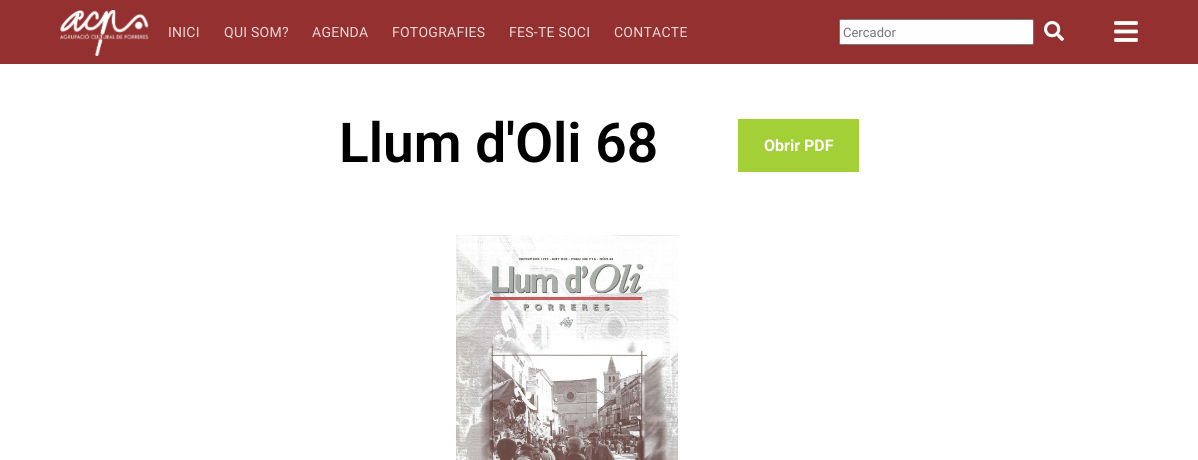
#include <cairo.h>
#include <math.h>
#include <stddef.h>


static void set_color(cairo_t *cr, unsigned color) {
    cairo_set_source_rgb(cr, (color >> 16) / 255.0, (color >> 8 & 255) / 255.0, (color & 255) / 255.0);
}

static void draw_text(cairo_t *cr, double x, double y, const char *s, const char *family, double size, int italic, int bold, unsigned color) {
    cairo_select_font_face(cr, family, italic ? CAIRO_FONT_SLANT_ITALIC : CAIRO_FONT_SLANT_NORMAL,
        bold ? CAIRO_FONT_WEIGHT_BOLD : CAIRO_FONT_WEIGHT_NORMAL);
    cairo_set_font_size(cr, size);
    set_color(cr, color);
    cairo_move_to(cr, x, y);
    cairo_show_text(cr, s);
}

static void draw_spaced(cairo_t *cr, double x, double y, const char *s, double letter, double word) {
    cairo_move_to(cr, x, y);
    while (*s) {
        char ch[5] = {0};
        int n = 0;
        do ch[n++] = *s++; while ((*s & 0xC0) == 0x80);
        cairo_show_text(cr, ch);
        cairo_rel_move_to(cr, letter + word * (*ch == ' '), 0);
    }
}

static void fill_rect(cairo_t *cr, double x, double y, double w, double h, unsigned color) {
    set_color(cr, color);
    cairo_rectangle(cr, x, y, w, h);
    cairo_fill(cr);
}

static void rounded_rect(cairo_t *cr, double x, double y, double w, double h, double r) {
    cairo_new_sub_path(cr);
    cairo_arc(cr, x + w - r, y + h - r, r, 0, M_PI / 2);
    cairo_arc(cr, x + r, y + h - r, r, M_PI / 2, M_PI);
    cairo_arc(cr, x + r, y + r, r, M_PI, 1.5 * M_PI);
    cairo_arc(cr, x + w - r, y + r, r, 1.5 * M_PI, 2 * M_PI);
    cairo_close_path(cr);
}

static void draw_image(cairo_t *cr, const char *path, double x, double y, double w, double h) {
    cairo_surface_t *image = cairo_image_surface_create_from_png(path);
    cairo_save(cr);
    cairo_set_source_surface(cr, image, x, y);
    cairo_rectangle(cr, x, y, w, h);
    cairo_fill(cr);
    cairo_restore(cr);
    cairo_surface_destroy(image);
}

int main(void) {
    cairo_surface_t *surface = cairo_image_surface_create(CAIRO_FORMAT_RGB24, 1198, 460);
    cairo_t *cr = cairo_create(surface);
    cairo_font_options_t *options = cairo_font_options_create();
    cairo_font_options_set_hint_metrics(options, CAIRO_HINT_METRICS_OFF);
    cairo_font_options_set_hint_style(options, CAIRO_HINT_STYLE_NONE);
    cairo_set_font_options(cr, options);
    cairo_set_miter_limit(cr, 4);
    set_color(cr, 0xFFFFFF);
    cairo_paint(cr);
    fill_rect(cr, 0, 0, 1198, 64, 0x943130);
    draw_image(cr, "assets/img1.png", 60, 10, 89, 46);
    cairo_select_font_face(cr, "Roboto", CAIRO_FONT_SLANT_NORMAL, CAIRO_FONT_WEIGHT_NORMAL);
    cairo_set_font_size(cr, 14);
    set_color(cr, 0xEAD6D6);
    draw_spaced(cr, 168, 37, "INICI", 0.25, 0);
    draw_spaced(cr, 224, 37, "QUI SOM?", 0.25, 0);
    draw_spaced(cr, 312, 37, "AGENDA", 0.25, 0);
    draw_spaced(cr, 392, 37, "FOTOGRAFIES", 0.25, 0);
    draw_spaced(cr, 509, 37, "FES-TE SOCI", 0.25, 0);
    draw_spaced(cr, 614, 37, "CONTACTE", 0.25, 0);
    set_color(cr, 0xFFFFFF);
    rounded_rect(cr, 839.5, 19.5, 194, 25, 1.5);
    cairo_fill_preserve(cr);
    set_color(cr, 0x767676);
    cairo_set_line_width(cr, 1);
    cairo_stroke(cr);
    draw_text(cr, 843, 37, "Cercador", "Roboto", 13, 0, 0, 0x757575);
    draw_image(cr, "assets/img2.png", 1044, 21, 20, 20);
    draw_image(cr, "assets/img3.png", 1114, 21, 24, 21);
    draw_text(cr, 339, 162, "Llum d'Oli 68", "Roboto SemiBold", 55, 0, 0, 0x000000);
    fill_rect(cr, 738, 119, 121, 53, 0xA4D037);
    draw_text(cr, 764, 151, "Obrir PDF", "Roboto", 16, 0, 1, 0xFFFFFF);
    draw_image(cr, "assets/img4.png", 456, 235, 222, 225);
    cairo_surface_write_to_png(surface, "output.png");
    cairo_font_options_destroy(options);
    cairo_destroy(cr);
    cairo_surface_destroy(surface);
    return 0;
}
